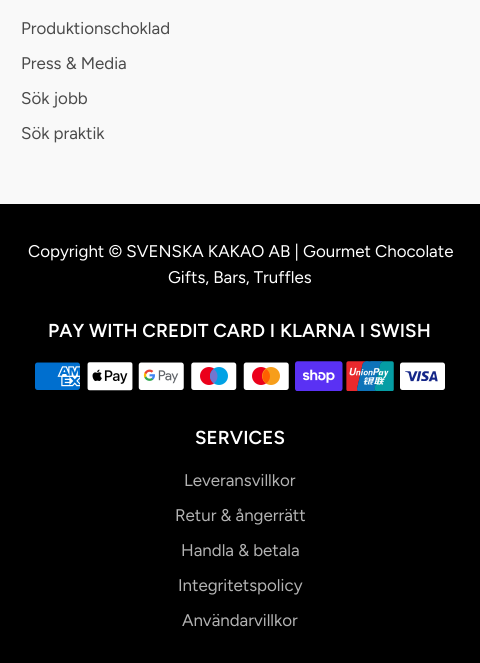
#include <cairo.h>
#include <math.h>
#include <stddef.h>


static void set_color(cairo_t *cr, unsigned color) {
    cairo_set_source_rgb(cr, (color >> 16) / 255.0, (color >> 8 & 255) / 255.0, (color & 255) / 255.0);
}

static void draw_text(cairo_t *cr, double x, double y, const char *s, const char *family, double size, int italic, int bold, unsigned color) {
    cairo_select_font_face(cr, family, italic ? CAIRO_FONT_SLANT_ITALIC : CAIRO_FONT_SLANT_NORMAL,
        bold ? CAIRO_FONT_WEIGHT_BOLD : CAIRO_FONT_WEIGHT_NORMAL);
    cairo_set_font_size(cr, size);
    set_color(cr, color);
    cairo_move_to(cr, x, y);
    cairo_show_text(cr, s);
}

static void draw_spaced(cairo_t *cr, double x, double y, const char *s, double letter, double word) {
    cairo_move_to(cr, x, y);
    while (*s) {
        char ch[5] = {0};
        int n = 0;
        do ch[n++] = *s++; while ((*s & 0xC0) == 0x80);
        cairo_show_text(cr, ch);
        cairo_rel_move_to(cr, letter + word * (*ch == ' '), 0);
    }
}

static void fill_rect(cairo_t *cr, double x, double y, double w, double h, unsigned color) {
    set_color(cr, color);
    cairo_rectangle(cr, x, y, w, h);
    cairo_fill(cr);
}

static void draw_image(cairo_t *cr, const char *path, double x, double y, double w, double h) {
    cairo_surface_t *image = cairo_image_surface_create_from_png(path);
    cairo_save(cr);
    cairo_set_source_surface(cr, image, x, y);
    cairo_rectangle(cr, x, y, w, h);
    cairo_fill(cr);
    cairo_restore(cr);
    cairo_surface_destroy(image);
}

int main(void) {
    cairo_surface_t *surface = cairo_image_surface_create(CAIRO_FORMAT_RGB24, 480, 663);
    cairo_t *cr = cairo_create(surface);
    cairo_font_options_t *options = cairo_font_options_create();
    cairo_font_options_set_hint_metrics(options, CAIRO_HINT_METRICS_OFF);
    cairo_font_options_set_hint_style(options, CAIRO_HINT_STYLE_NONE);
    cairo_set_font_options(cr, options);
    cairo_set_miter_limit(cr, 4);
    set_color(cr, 0xF9F9F9);
    cairo_paint(cr);
    draw_text(cr, 21, 34, "Produktionschoklad", "Figtree", 16.9, 0, 0, 0x4B4B4B);
    draw_text(cr, 21, 69, "Press & Media", "Figtree", 16.9, 0, 0, 0x4B4B4B);
    draw_text(cr, 21, 104, "Sök jobb", "Figtree", 16.9, 0, 0, 0x4B4B4B);
    draw_text(cr, 21, 139, "Sök praktik", "Figtree", 16.9, 0, 0, 0x4B4B4B);
    fill_rect(cr, 0, 204, 480, 459, 0x000000);
    draw_text(cr, 28, 257, "Copyright © SVENSKA KAKAO AB | Gourmet Chocolate", "Figtree", 16.9, 0, 0, 0xFFFFFF);
    draw_text(cr, 168, 283, "Gifts, Bars, Truffles", "Figtree", 16.9, 0, 0, 0xFFFFFF);
    cairo_select_font_face(cr, "Figtree SemiBold", CAIRO_FONT_SLANT_NORMAL, CAIRO_FONT_WEIGHT_NORMAL);
    cairo_set_font_size(cr, 18.75);
    draw_spaced(cr, 48, 337, "PAY WITH CREDIT CARD I KLARNA I SWISH", 0.1, 0);
    draw_image(cr, "assets/img1.png", 35, 362, 45, 28);
    draw_image(cr, "assets/img2.png", 87, 362, 46, 29);
    draw_image(cr, "assets/img3.png", 138, 362, 46, 28);
    draw_image(cr, "assets/img4.png", 191, 362, 46, 28);
    draw_image(cr, "assets/img5.png", 243, 362, 46, 28);
    draw_image(cr, "assets/img6.png", 295, 361, 48, 30);
    draw_image(cr, "assets/img7.png", 346, 361, 48, 30);
    draw_image(cr, "assets/img8.png", 400, 362, 45, 28);
    draw_spaced(cr, 195, 444, "SERVICES", 0.1, 0);
    draw_text(cr, 184, 486, "Leveransvillkor", "Figtree", 16.9, 0, 0, 0xB3B3B3);
    draw_text(cr, 175, 521, "Retur & ångerrätt", "Figtree", 16.9, 0, 0, 0xB3B3B3);
    draw_text(cr, 181, 556, "Handla & betala", "Figtree", 16.9, 0, 0, 0xB3B3B3);
    draw_text(cr, 178, 591, "Integritetspolicy", "Figtree", 16.9, 0, 0, 0xB3B3B3);
    draw_text(cr, 182, 626, "Användarvillkor", "Figtree", 16.9, 0, 0, 0xB3B3B3);
    cairo_surface_write_to_png(surface, "output.png");
    cairo_font_options_destroy(options);
    cairo_destroy(cr);
    cairo_surface_destroy(surface);
    return 0;
}
